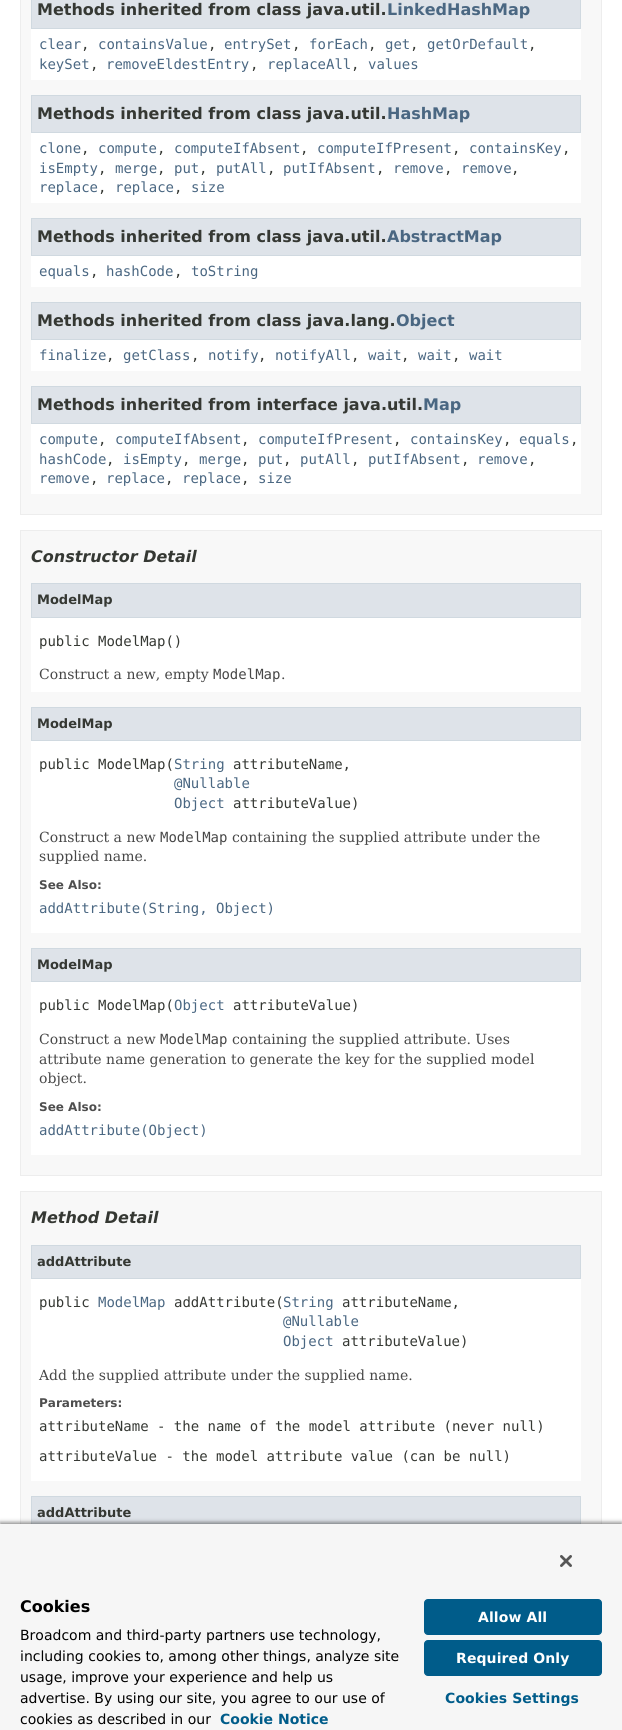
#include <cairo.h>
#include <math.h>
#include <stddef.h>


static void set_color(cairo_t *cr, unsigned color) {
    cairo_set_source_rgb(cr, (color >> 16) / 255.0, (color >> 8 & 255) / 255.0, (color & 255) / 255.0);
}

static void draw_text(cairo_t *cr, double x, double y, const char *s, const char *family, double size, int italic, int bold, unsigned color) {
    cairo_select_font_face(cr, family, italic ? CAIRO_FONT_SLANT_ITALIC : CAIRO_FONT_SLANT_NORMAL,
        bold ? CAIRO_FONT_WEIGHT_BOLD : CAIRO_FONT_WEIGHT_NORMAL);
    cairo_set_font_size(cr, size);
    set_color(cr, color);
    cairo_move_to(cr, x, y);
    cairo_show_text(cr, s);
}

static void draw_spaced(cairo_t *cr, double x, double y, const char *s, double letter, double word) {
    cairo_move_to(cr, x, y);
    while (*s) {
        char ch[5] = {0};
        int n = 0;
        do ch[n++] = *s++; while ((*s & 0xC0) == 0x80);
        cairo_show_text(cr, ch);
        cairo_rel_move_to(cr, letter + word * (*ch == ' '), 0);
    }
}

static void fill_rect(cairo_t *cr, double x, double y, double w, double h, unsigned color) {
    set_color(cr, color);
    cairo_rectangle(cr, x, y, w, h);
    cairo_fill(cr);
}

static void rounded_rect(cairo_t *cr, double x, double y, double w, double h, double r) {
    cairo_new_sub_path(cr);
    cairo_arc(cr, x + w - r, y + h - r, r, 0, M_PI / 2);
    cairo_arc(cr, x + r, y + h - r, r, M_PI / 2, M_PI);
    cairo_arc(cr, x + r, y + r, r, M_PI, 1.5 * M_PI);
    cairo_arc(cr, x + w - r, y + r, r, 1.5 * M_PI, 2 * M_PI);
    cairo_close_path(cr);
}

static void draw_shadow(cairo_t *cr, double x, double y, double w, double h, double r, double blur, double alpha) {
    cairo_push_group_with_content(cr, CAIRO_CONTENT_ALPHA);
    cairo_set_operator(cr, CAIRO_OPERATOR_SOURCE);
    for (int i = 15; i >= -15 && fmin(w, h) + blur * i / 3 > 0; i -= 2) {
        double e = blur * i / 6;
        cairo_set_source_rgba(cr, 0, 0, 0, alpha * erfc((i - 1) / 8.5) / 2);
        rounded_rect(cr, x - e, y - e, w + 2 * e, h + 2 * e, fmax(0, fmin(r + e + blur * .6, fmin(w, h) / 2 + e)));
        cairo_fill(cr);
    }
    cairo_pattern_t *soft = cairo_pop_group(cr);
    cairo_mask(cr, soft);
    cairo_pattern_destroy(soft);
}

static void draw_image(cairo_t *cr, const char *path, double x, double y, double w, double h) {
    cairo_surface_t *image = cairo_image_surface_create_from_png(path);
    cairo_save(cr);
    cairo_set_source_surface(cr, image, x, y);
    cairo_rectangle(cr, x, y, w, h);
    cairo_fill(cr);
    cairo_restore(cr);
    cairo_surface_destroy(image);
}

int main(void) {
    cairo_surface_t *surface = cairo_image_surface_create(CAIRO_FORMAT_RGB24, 622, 1730);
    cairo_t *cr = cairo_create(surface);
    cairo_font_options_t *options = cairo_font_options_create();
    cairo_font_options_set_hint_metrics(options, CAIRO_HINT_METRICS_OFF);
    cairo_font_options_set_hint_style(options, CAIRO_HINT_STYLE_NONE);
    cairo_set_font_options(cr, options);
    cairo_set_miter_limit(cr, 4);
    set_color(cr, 0xFFFFFF);
    cairo_paint(cr);
    set_color(cr, 0xF8F8F8);
    cairo_rectangle(cr, 20.5, -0.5, 581, 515);
    cairo_fill_preserve(cr);
    set_color(cr, 0xEDEDED);
    cairo_set_line_width(cr, 1);
    cairo_stroke(cr);
    fill_rect(cr, 31, 29, 550, 51, 0xFFFFFF);
    set_color(cr, 0xDEE3E9);
    cairo_rectangle(cr, 31.5, -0.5, 549, 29);
    cairo_fill_preserve(cr);
    set_color(cr, 0xD0D9E0);
    cairo_stroke(cr);
    draw_text(cr, 37, 15, "Methods inherited from class java.util.", "DejaVu Sans", 16, 0, 1, 0x353833);
    draw_text(cr, 387, 15, "LinkedHashMap", "DejaVu Sans", 16, 0, 1, 0x4A6782);
    draw_text(cr, 39, 49, "clear", "DejaVu Sans Mono", 14, 0, 0, 0x4A6782);
    draw_text(cr, 81, 49, ",", "DejaVu Sans Mono", 14, 0, 0, 0x353833);
    draw_text(cr, 98, 49, "containsValue", "DejaVu Sans Mono", 14, 0, 0, 0x4A6782);
    draw_text(cr, 208, 49, ",", "DejaVu Sans Mono", 14, 0, 0, 0x353833);
    draw_text(cr, 224, 49, "entrySet", "DejaVu Sans Mono", 14, 0, 0, 0x4A6782);
    draw_text(cr, 292, 49, ",", "DejaVu Sans Mono", 14, 0, 0, 0x353833);
    draw_text(cr, 309, 49, "forEach", "DejaVu Sans Mono", 14, 0, 0, 0x4A6782);
    draw_text(cr, 368, 49, ",", "DejaVu Sans Mono", 14, 0, 0, 0x353833);
    draw_text(cr, 385, 49, "get", "DejaVu Sans Mono", 14, 0, 0, 0x4A6782);
    draw_text(cr, 410, 49, ",", "DejaVu Sans Mono", 14, 0, 0, 0x353833);
    draw_text(cr, 427, 49, "getOrDefault", "DejaVu Sans Mono", 14, 0, 0, 0x4A6782);
    draw_text(cr, 528, 49, ",", "DejaVu Sans Mono", 14, 0, 0, 0x353833);
    draw_text(cr, 39, 69, "keySet", "DejaVu Sans Mono", 14, 0, 0, 0x4A6782);
    draw_text(cr, 90, 69, ",", "DejaVu Sans Mono", 14, 0, 0, 0x353833);
    draw_text(cr, 106, 69, "removeEldestEntry", "DejaVu Sans Mono", 14, 0, 0, 0x4A6782);
    draw_text(cr, 250, 69, ",", "DejaVu Sans Mono", 14, 0, 0, 0x353833);
    draw_text(cr, 267, 69, "replaceAll", "DejaVu Sans Mono", 14, 0, 0, 0x4A6782);
    draw_text(cr, 351, 69, ",", "DejaVu Sans Mono", 14, 0, 0, 0x353833);
    draw_text(cr, 368, 69, "values", "DejaVu Sans Mono", 14, 0, 0, 0x4A6782);
    fill_rect(cr, 31, 133, 550, 70, 0xFFFFFF);
    set_color(cr, 0xDEE3E9);
    cairo_rectangle(cr, 31.5, 95.5, 549, 37);
    cairo_fill_preserve(cr);
    set_color(cr, 0xD0D9E0);
    cairo_stroke(cr);
    draw_text(cr, 37, 119, "Methods inherited from class java.util.", "DejaVu Sans", 16, 0, 1, 0x353833);
    draw_text(cr, 387, 119, "HashMap", "DejaVu Sans", 16, 0, 1, 0x4A6782);
    draw_text(cr, 39, 153, "clone", "DejaVu Sans Mono", 14, 0, 0, 0x4A6782);
    draw_text(cr, 81, 153, ",", "DejaVu Sans Mono", 14, 0, 0, 0x353833);
    draw_text(cr, 98, 153, "compute", "DejaVu Sans Mono", 14, 0, 0, 0x4A6782);
    draw_text(cr, 157, 153, ",", "DejaVu Sans Mono", 14, 0, 0, 0x353833);
    draw_text(cr, 174, 153, "computeIfAbsent", "DejaVu Sans Mono", 14, 0, 0, 0x4A6782);
    draw_text(cr, 300, 153, ",", "DejaVu Sans Mono", 14, 0, 0, 0x353833);
    draw_text(cr, 317, 153, "computeIfPresent", "DejaVu Sans Mono", 14, 0, 0, 0x4A6782);
    draw_text(cr, 452, 153, ",", "DejaVu Sans Mono", 14, 0, 0, 0x353833);
    draw_text(cr, 469, 153, "containsKey", "DejaVu Sans Mono", 14, 0, 0, 0x4A6782);
    draw_text(cr, 562, 153, ",", "DejaVu Sans Mono", 14, 0, 0, 0x353833);
    draw_text(cr, 39, 173, "isEmpty", "DejaVu Sans Mono", 14, 0, 0, 0x4A6782);
    draw_text(cr, 98, 173, ",", "DejaVu Sans Mono", 14, 0, 0, 0x353833);
    draw_text(cr, 115, 173, "merge", "DejaVu Sans Mono", 14, 0, 0, 0x4A6782);
    draw_text(cr, 157, 173, ",", "DejaVu Sans Mono", 14, 0, 0, 0x353833);
    draw_text(cr, 174, 173, "put", "DejaVu Sans Mono", 14, 0, 0, 0x4A6782);
    draw_text(cr, 199, 173, ",", "DejaVu Sans Mono", 14, 0, 0, 0x353833);
    draw_text(cr, 216, 173, "putAll", "DejaVu Sans Mono", 14, 0, 0, 0x4A6782);
    draw_text(cr, 267, 173, ",", "DejaVu Sans Mono", 14, 0, 0, 0x353833);
    draw_text(cr, 283, 173, "putIfAbsent", "DejaVu Sans Mono", 14, 0, 0, 0x4A6782);
    draw_text(cr, 376, 173, ",", "DejaVu Sans Mono", 14, 0, 0, 0x353833);
    draw_text(cr, 393, 173, "remove", "DejaVu Sans Mono", 14, 0, 0, 0x4A6782);
    draw_text(cr, 444, 173, ",", "DejaVu Sans Mono", 14, 0, 0, 0x353833);
    draw_text(cr, 461, 173, "remove", "DejaVu Sans Mono", 14, 0, 0, 0x4A6782);
    draw_text(cr, 511, 173, ",", "DejaVu Sans Mono", 14, 0, 0, 0x353833);
    draw_text(cr, 39, 192, "replace", "DejaVu Sans Mono", 14, 0, 0, 0x4A6782);
    draw_text(cr, 98, 192, ",", "DejaVu Sans Mono", 14, 0, 0, 0x353833);
    draw_text(cr, 115, 192, "replace", "DejaVu Sans Mono", 14, 0, 0, 0x4A6782);
    draw_text(cr, 174, 192, ",", "DejaVu Sans Mono", 14, 0, 0, 0x353833);
    draw_text(cr, 191, 192, "size", "DejaVu Sans Mono", 14, 0, 0, 0x4A6782);
    fill_rect(cr, 31, 256, 550, 31, 0xFFFFFF);
    set_color(cr, 0xDEE3E9);
    cairo_rectangle(cr, 31.5, 218.5, 549, 37);
    cairo_fill_preserve(cr);
    set_color(cr, 0xD0D9E0);
    cairo_stroke(cr);
    draw_text(cr, 37, 242, "Methods inherited from class java.util.", "DejaVu Sans", 16, 0, 1, 0x353833);
    draw_text(cr, 387, 242, "AbstractMap", "DejaVu Sans", 16, 0, 1, 0x4A6782);
    draw_text(cr, 39, 276, "equals", "DejaVu Sans Mono", 14, 0, 0, 0x4A6782);
    draw_text(cr, 90, 276, ",", "DejaVu Sans Mono", 14, 0, 0, 0x353833);
    draw_text(cr, 106, 276, "hashCode", "DejaVu Sans Mono", 14, 0, 0, 0x4A6782);
    draw_text(cr, 174, 276, ",", "DejaVu Sans Mono", 14, 0, 0, 0x353833);
    draw_text(cr, 191, 276, "toString", "DejaVu Sans Mono", 14, 0, 0, 0x4A6782);
    fill_rect(cr, 31, 340, 550, 31, 0xFFFFFF);
    set_color(cr, 0xDEE3E9);
    cairo_rectangle(cr, 31.5, 302.5, 549, 37);
    cairo_fill_preserve(cr);
    set_color(cr, 0xD0D9E0);
    cairo_stroke(cr);
    draw_text(cr, 37, 326, "Methods inherited from class java.lang.", "DejaVu Sans", 16, 0, 1, 0x353833);
    draw_text(cr, 396, 326, "Object", "DejaVu Sans", 16, 0, 1, 0x4A6782);
    draw_text(cr, 39, 360, "finalize", "DejaVu Sans Mono", 14, 0, 0, 0x4A6782);
    draw_text(cr, 106, 360, ",", "DejaVu Sans Mono", 14, 0, 0, 0x353833);
    draw_text(cr, 123, 360, "getClass", "DejaVu Sans Mono", 14, 0, 0, 0x4A6782);
    draw_text(cr, 191, 360, ",", "DejaVu Sans Mono", 14, 0, 0, 0x353833);
    draw_text(cr, 208, 360, "notify", "DejaVu Sans Mono", 14, 0, 0, 0x4A6782);
    draw_text(cr, 258, 360, ",", "DejaVu Sans Mono", 14, 0, 0, 0x353833);
    draw_text(cr, 275, 360, "notifyAll", "DejaVu Sans Mono", 14, 0, 0, 0x4A6782);
    draw_text(cr, 351, 360, ",", "DejaVu Sans Mono", 14, 0, 0, 0x353833);
    draw_text(cr, 368, 360, "wait", "DejaVu Sans Mono", 14, 0, 0, 0x4A6782);
    draw_text(cr, 401, 360, ",", "DejaVu Sans Mono", 14, 0, 0, 0x353833);
    draw_text(cr, 418, 360, "wait", "DejaVu Sans Mono", 14, 0, 0, 0x4A6782);
    draw_text(cr, 452, 360, ",", "DejaVu Sans Mono", 14, 0, 0, 0x353833);
    draw_text(cr, 469, 360, "wait", "DejaVu Sans Mono", 14, 0, 0, 0x4A6782);
    fill_rect(cr, 31, 424, 550, 70, 0xFFFFFF);
    set_color(cr, 0xDEE3E9);
    cairo_rectangle(cr, 31.5, 386.5, 549, 37);
    cairo_fill_preserve(cr);
    set_color(cr, 0xD0D9E0);
    cairo_stroke(cr);
    draw_text(cr, 37, 410, "Methods inherited from interface java.util.", "DejaVu Sans", 16, 0, 1, 0x353833);
    draw_text(cr, 423, 410, "Map", "DejaVu Sans", 16, 0, 1, 0x4A6782);
    draw_text(cr, 39, 444, "compute", "DejaVu Sans Mono", 14, 0, 0, 0x4A6782);
    draw_text(cr, 98, 444, ",", "DejaVu Sans Mono", 14, 0, 0, 0x353833);
    draw_text(cr, 115, 444, "computeIfAbsent", "DejaVu Sans Mono", 14, 0, 0, 0x4A6782);
    draw_text(cr, 241, 444, ",", "DejaVu Sans Mono", 14, 0, 0, 0x353833);
    draw_text(cr, 258, 444, "computeIfPresent", "DejaVu Sans Mono", 14, 0, 0, 0x4A6782);
    draw_text(cr, 393, 444, ",", "DejaVu Sans Mono", 14, 0, 0, 0x353833);
    draw_text(cr, 410, 444, "containsKey", "DejaVu Sans Mono", 14, 0, 0, 0x4A6782);
    draw_text(cr, 503, 444, ",", "DejaVu Sans Mono", 14, 0, 0, 0x353833);
    draw_text(cr, 519, 444, "equals", "DejaVu Sans Mono", 14, 0, 0, 0x4A6782);
    draw_text(cr, 570, 444, ",", "DejaVu Sans Mono", 14, 0, 0, 0x353833);
    draw_text(cr, 39, 464, "hashCode", "DejaVu Sans Mono", 14, 0, 0, 0x4A6782);
    draw_text(cr, 106, 464, ",", "DejaVu Sans Mono", 14, 0, 0, 0x353833);
    draw_text(cr, 123, 464, "isEmpty", "DejaVu Sans Mono", 14, 0, 0, 0x4A6782);
    draw_text(cr, 182, 464, ",", "DejaVu Sans Mono", 14, 0, 0, 0x353833);
    draw_text(cr, 199, 464, "merge", "DejaVu Sans Mono", 14, 0, 0, 0x4A6782);
    draw_text(cr, 241, 464, ",", "DejaVu Sans Mono", 14, 0, 0, 0x353833);
    draw_text(cr, 258, 464, "put", "DejaVu Sans Mono", 14, 0, 0, 0x4A6782);
    draw_text(cr, 283, 464, ",", "DejaVu Sans Mono", 14, 0, 0, 0x353833);
    draw_text(cr, 300, 464, "putAll", "DejaVu Sans Mono", 14, 0, 0, 0x4A6782);
    draw_text(cr, 351, 464, ",", "DejaVu Sans Mono", 14, 0, 0, 0x353833);
    draw_text(cr, 368, 464, "putIfAbsent", "DejaVu Sans Mono", 14, 0, 0, 0x4A6782);
    draw_text(cr, 461, 464, ",", "DejaVu Sans Mono", 14, 0, 0, 0x353833);
    draw_text(cr, 477, 464, "remove", "DejaVu Sans Mono", 14, 0, 0, 0x4A6782);
    draw_text(cr, 528, 464, ",", "DejaVu Sans Mono", 14, 0, 0, 0x353833);
    draw_text(cr, 39, 483, "remove", "DejaVu Sans Mono", 14, 0, 0, 0x4A6782);
    draw_text(cr, 90, 483, ",", "DejaVu Sans Mono", 14, 0, 0, 0x353833);
    draw_text(cr, 106, 483, "replace", "DejaVu Sans Mono", 14, 0, 0, 0x4A6782);
    draw_text(cr, 165, 483, ",", "DejaVu Sans Mono", 14, 0, 0, 0x353833);
    draw_text(cr, 182, 483, "replace", "DejaVu Sans Mono", 14, 0, 0, 0x4A6782);
    draw_text(cr, 241, 483, ",", "DejaVu Sans Mono", 14, 0, 0, 0x353833);
    draw_text(cr, 258, 483, "size", "DejaVu Sans Mono", 14, 0, 0, 0x4A6782);
    set_color(cr, 0xF8F8F8);
    cairo_rectangle(cr, 20.5, 530.5, 581, 645);
    cairo_fill_preserve(cr);
    set_color(cr, 0xEDEDED);
    cairo_stroke(cr);
    draw_text(cr, 31, 562, "Constructor Detail", "DejaVu Sans", 16, 1, 1, 0x353833);
    fill_rect(cr, 31, 618, 550, 74, 0xFFFFFF);
    set_color(cr, 0xDEE3E9);
    cairo_rectangle(cr, 31.5, 583.5, 549, 34);
    cairo_fill_preserve(cr);
    set_color(cr, 0xD0D9E0);
    cairo_stroke(cr);
    draw_text(cr, 37, 604, "ModelMap", "DejaVu Sans", 13, 0, 1, 0x353833);
    draw_text(cr, 39, 646, "public ModelMap()", "DejaVu Sans Mono", 14, 0, 0, 0x353833);
    draw_text(cr, 39, 679, "Construct a new, empty", "DejaVu Serif", 14, 0, 0, 0x474747);
    draw_text(cr, 213, 679, "ModelMap", "DejaVu Sans Mono", 14, 0, 0, 0x474747);
    draw_text(cr, 281, 679, ".", "DejaVu Serif", 14, 0, 0, 0x474747);
    fill_rect(cr, 31, 741, 550, 192, 0xFFFFFF);
    set_color(cr, 0xDEE3E9);
    cairo_rectangle(cr, 31.5, 707.5, 549, 33);
    cairo_fill_preserve(cr);
    set_color(cr, 0xD0D9E0);
    cairo_stroke(cr);
    draw_text(cr, 37, 728, "ModelMap", "DejaVu Sans", 13, 0, 1, 0x353833);
    draw_text(cr, 39, 769, "public ModelMap(", "DejaVu Sans Mono", 14, 0, 0, 0x353833);
    draw_text(cr, 174, 769, "String", "DejaVu Sans Mono", 14, 0, 0, 0x4A6782);
    draw_text(cr, 233, 769, "attributeName,", "DejaVu Sans Mono", 14, 0, 0, 0x353833);
    draw_text(cr, 174, 788, "@Nullable", "DejaVu Sans Mono", 14, 0, 0, 0x4A6782);
    draw_text(cr, 174, 808, "Object", "DejaVu Sans Mono", 14, 0, 0, 0x4A6782);
    draw_text(cr, 233, 808, "attributeValue)", "DejaVu Sans Mono", 14, 0, 0, 0x353833);
    draw_text(cr, 39, 842, "Construct a new", "DejaVu Serif", 14, 0, 0, 0x474747);
    draw_text(cr, 160, 842, "ModelMap", "DejaVu Sans Mono", 14, 0, 0, 0x474747);
    draw_text(cr, 232, 842, "containing the supplied attribute under the", "DejaVu Serif", 14, 0, 0, 0x474747);
    draw_text(cr, 39, 861, "supplied name.", "DejaVu Serif", 14, 0, 0, 0x474747);
    draw_text(cr, 39, 889, "See Also:", "DejaVu Sans", 12, 0, 1, 0x4E4E4E);
    draw_text(cr, 39, 913, "addAttribute(String, Object)", "DejaVu Sans Mono", 14, 0, 0, 0x4A6782);
    fill_rect(cr, 31, 982, 550, 173, 0xFFFFFF);
    set_color(cr, 0xDEE3E9);
    cairo_rectangle(cr, 31.5, 948.5, 549, 33);
    cairo_fill_preserve(cr);
    set_color(cr, 0xD0D9E0);
    cairo_stroke(cr);
    draw_text(cr, 37, 969, "ModelMap", "DejaVu Sans", 13, 0, 1, 0x353833);
    draw_text(cr, 39, 1010, "public ModelMap(", "DejaVu Sans Mono", 14, 0, 0, 0x353833);
    draw_text(cr, 174, 1010, "Object", "DejaVu Sans Mono", 14, 0, 0, 0x4A6782);
    draw_text(cr, 233, 1010, "attributeValue)", "DejaVu Sans Mono", 14, 0, 0, 0x353833);
    draw_text(cr, 39, 1044, "Construct a new", "DejaVu Serif", 14, 0, 0, 0x474747);
    draw_text(cr, 160, 1044, "ModelMap", "DejaVu Sans Mono", 14, 0, 0, 0x474747);
    draw_text(cr, 232, 1044, "containing the supplied attribute. Uses", "DejaVu Serif", 14, 0, 0, 0x474747);
    draw_text(cr, 39, 1064, "attribute name generation to generate the key for the supplied model", "DejaVu Serif", 14, 0, 0, 0x474747);
    draw_text(cr, 39, 1083, "object.", "DejaVu Serif", 14, 0, 0, 0x474747);
    draw_text(cr, 39, 1111, "See Also:", "DejaVu Sans", 12, 0, 1, 0x4E4E4E);
    draw_text(cr, 39, 1135, "addAttribute(Object)", "DejaVu Sans Mono", 14, 0, 0, 0x4A6782);
    fill_rect(cr, 21, 1192, 580, 332, 0xF8F8F8);
    cairo_rectangle(cr, 20.5, 1191.5, 581, 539);
    set_color(cr, 0xEDEDED);
    cairo_stroke(cr);
    draw_text(cr, 31, 1223, "Method Detail", "DejaVu Sans", 16, 1, 1, 0x353833);
    fill_rect(cr, 31, 1279, 550, 202, 0xFFFFFF);
    set_color(cr, 0xDEE3E9);
    cairo_rectangle(cr, 31.5, 1245.5, 549, 33);
    cairo_fill_preserve(cr);
    set_color(cr, 0xD0D9E0);
    cairo_stroke(cr);
    draw_text(cr, 37, 1266, "addAttribute", "DejaVu Sans", 13, 0, 1, 0x353833);
    draw_text(cr, 39, 1307, "public", "DejaVu Sans Mono", 14, 0, 0, 0x353833);
    draw_text(cr, 98, 1307, "ModelMap", "DejaVu Sans Mono", 14, 0, 0, 0x4A6782);
    draw_text(cr, 174, 1307, "addAttribute(", "DejaVu Sans Mono", 14, 0, 0, 0x353833);
    draw_text(cr, 283, 1307, "String", "DejaVu Sans Mono", 14, 0, 0, 0x4A6782);
    draw_text(cr, 342, 1307, "attributeName,", "DejaVu Sans Mono", 14, 0, 0, 0x353833);
    draw_text(cr, 283, 1326, "@Nullable", "DejaVu Sans Mono", 14, 0, 0, 0x4A6782);
    draw_text(cr, 283, 1346, "Object", "DejaVu Sans Mono", 14, 0, 0, 0x4A6782);
    draw_text(cr, 342, 1346, "attributeValue)", "DejaVu Sans Mono", 14, 0, 0, 0x353833);
    draw_text(cr, 39, 1380, "Add the supplied attribute under the supplied name.", "DejaVu Serif", 14, 0, 0, 0x474747);
    draw_text(cr, 39, 1407, "Parameters:", "DejaVu Sans", 12, 0, 1, 0x4E4E4E);
    draw_text(cr, 39, 1431, "attributeName - the name of the model attribute (never null)", "DejaVu Sans Mono", 14, 0, 0, 0x353833);
    draw_text(cr, 39, 1461, "attributeValue - the model attribute value (can be null)", "DejaVu Sans Mono", 14, 0, 0, 0x353833);
    fill_rect(cr, 32, 1497, 548, 27, 0xDEE3E9);
    cairo_rectangle(cr, 31.5, 1496.5, 549, 33);
    set_color(cr, 0xD0D9E0);
    cairo_stroke(cr);
    draw_text(cr, 37, 1517, "addAttribute", "DejaVu Sans", 13, 0, 1, 0x353833);
    set_color(cr, 0x000000);
    draw_shadow(cr, 0, 1522, 622, 208, 0, 2, 0.35);
    draw_shadow(cr, 0, 1524, 622, 206, 0, 2, 0.2);
    fill_rect(cr, 0, 1524, 622, 206, 0xF6F6F6);
    draw_image(cr, "assets/img1.png", 560, 1555, 12, 12);
    draw_text(cr, 20, 1612, "Cookies", "DejaVu Sans", 16, 0, 1, 0x000000);
    draw_text(cr, 20, 1640, "Broadcom and third-party partners use technology,", "DejaVu Sans", 14, 0, 0, 0x000000);
    draw_text(cr, 20, 1661, "including cookies to, among other things, analyze site", "DejaVu Sans", 14, 0, 0, 0x000000);
    draw_text(cr, 20, 1682, "usage, improve your experience and help us", "DejaVu Sans", 14, 0, 0, 0x000000);
    draw_text(cr, 20, 1703, "advertise. By using our site, you agree to our use of", "DejaVu Sans", 14, 0, 0, 0x000000);
    draw_text(cr, 20, 1724, "cookies as described in our", "DejaVu Sans", 14, 0, 0, 0x000000);
    draw_text(cr, 220, 1724, "Cookie Notice", "DejaVu Sans", 14, 0, 1, 0x005C8A);
    rounded_rect(cr, 424.5, 1599.5, 177, 35, 3.5);
    cairo_fill_preserve(cr);
    cairo_stroke(cr);
    set_color(cr, 0xFFFFFF);
    draw_spaced(cr, 478, 1622, "Allow All", 0.1, 0);
    set_color(cr, 0x005C8A);
    rounded_rect(cr, 424.5, 1640.5, 177, 35, 3.5);
    cairo_fill_preserve(cr);
    cairo_stroke(cr);
    set_color(cr, 0xFFFFFF);
    draw_spaced(cr, 456, 1663, "Required Only", 0.1, 0);
    set_color(cr, 0x005C8A);
    draw_spaced(cr, 445, 1703, "Cookies Settings", 0.1, 0);
    cairo_surface_write_to_png(surface, "output.png");
    cairo_font_options_destroy(options);
    cairo_destroy(cr);
    cairo_surface_destroy(surface);
    return 0;
}
